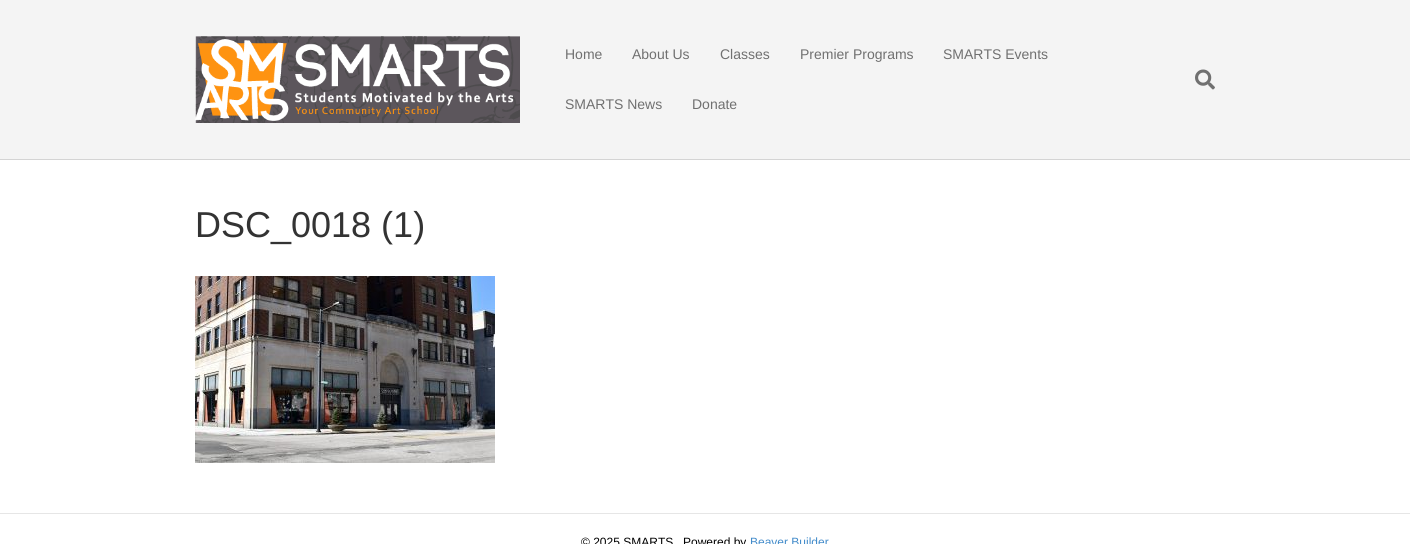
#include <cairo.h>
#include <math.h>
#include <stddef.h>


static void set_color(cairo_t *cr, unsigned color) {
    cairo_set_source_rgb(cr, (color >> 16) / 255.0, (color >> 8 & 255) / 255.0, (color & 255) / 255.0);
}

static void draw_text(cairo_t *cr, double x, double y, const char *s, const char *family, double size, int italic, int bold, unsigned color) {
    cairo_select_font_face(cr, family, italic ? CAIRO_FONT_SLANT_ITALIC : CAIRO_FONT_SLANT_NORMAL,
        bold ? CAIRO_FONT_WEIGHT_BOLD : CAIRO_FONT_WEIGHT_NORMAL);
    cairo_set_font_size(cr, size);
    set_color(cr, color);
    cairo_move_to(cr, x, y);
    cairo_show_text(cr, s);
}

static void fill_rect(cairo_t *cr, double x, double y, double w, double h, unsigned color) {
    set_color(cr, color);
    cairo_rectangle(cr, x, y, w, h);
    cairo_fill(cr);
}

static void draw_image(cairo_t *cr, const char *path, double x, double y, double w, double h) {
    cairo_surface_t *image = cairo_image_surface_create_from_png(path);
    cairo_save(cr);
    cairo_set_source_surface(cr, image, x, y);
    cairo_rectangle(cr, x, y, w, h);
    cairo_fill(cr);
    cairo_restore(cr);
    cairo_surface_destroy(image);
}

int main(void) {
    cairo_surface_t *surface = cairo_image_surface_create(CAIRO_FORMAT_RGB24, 1410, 544);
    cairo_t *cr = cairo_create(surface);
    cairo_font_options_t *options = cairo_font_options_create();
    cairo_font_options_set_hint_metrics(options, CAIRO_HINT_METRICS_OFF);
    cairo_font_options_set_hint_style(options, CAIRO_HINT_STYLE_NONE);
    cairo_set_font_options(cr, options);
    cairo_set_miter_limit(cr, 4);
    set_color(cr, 0xF4F4F4);
    cairo_paint(cr);
    fill_rect(cr, 0, 159, 1410, 1, 0xD4D4D4);
    draw_image(cr, "assets/img1.png", 195, 36, 325, 87);
    draw_text(cr, 565, 59, "Home", "Liberation Sans", 14, 0, 0, 0x707070);
    draw_text(cr, 632, 59, "About Us", "Liberation Sans", 14, 0, 0, 0x707070);
    draw_text(cr, 720, 59, "Classes", "Liberation Sans", 14, 0, 0, 0x707070);
    draw_text(cr, 800, 59, "Premier Programs", "Liberation Sans", 14, 0, 0, 0x707070);
    draw_text(cr, 943, 59, "SMARTS Events", "Liberation Sans", 14, 0, 0, 0x707070);
    draw_text(cr, 565, 109, "SMARTS News", "Liberation Sans", 14, 0, 0, 0x707070);
    draw_text(cr, 692, 109, "Donate", "Liberation Sans", 14, 0, 0, 0x707070);
    draw_image(cr, "assets/img2.png", 1195, 69, 20, 21);
    fill_rect(cr, 0, 160, 1410, 353, 0xFFFFFF);
    draw_text(cr, 195, 237, "DSC_0018 (1)", "Liberation Sans", 36, 0, 0, 0x333333);
    draw_image(cr, "assets/img3.png", 195, 276, 300, 187);
    fill_rect(cr, 0, 514, 1410, 30, 0xFFFFFF);
    fill_rect(cr, 0, 513, 1410, 1, 0xE6E6E6);
    draw_text(cr, 581, 546, "© 2025 SMARTS", "Liberation Sans", 12, 0, 0, 0x000000);
    draw_text(cr, 683, 546, "Powered by", "Liberation Sans", 12, 0, 0, 0x000000);
    draw_text(cr, 750, 546, "Beaver Builder", "Liberation Sans", 12, 0, 0, 0x428BCA);
    cairo_surface_write_to_png(surface, "output.png");
    cairo_font_options_destroy(options);
    cairo_destroy(cr);
    cairo_surface_destroy(surface);
    return 0;
}
